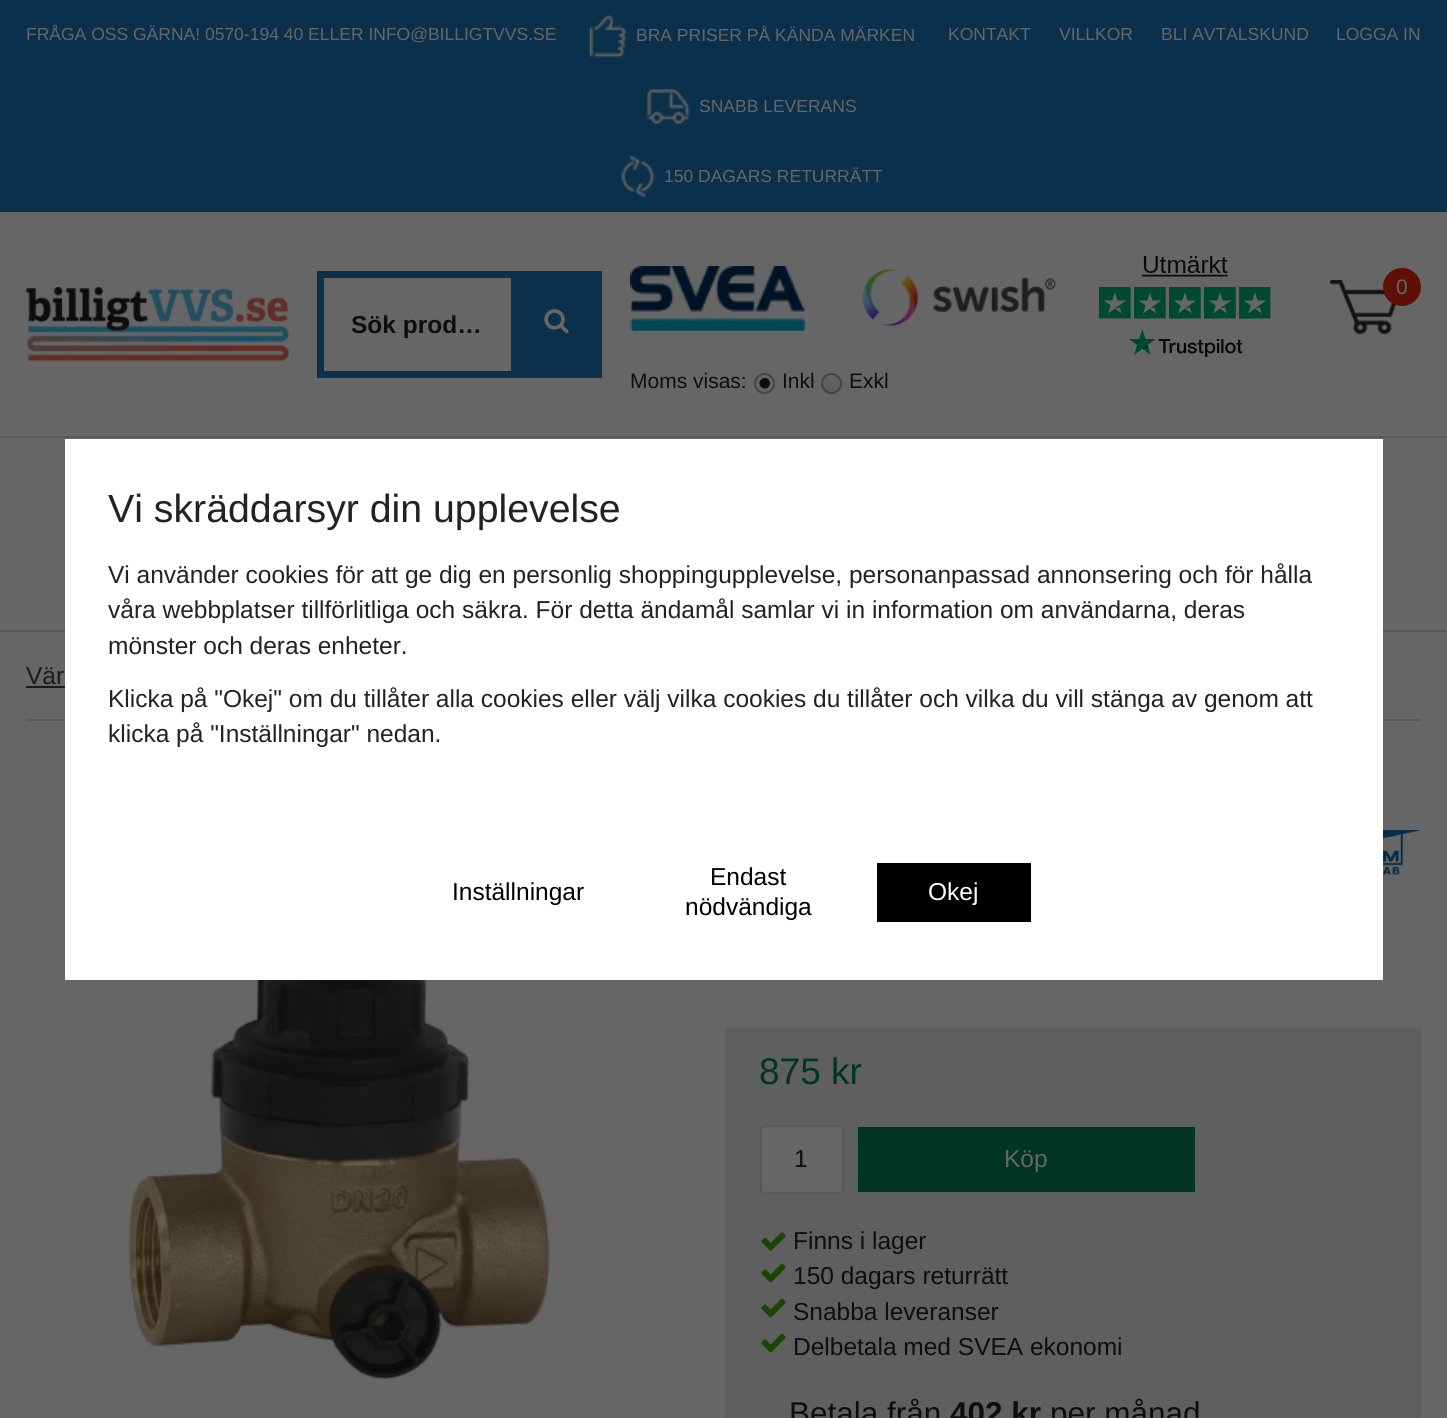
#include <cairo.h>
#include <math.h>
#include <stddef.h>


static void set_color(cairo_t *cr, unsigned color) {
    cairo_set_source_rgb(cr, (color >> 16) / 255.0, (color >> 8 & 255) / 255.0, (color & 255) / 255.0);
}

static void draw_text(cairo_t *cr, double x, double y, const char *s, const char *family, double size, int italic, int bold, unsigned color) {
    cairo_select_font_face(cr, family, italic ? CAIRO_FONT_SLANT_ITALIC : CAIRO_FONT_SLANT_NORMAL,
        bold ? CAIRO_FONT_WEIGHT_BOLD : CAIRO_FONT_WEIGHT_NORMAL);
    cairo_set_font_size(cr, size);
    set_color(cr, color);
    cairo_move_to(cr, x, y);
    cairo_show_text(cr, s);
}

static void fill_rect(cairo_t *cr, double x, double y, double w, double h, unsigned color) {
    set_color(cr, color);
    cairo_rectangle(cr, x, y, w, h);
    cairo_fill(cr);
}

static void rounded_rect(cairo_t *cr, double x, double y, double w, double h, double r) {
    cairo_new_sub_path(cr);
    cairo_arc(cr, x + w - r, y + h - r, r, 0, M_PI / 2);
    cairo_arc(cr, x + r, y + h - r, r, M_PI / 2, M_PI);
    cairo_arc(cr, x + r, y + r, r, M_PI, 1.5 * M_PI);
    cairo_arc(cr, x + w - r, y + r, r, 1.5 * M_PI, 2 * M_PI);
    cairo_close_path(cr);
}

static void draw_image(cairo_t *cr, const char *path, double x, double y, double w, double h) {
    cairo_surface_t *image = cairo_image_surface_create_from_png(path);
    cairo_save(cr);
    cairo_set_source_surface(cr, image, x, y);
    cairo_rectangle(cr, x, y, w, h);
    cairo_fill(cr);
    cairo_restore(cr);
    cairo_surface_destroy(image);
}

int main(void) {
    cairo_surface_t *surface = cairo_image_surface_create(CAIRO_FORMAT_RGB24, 1447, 1418);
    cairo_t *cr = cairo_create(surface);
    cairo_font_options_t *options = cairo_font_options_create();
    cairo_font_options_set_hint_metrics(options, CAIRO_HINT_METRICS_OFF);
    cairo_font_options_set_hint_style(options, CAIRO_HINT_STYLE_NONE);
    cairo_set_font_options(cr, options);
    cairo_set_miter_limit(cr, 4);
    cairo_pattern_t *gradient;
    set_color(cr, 0x666666);
    cairo_paint(cr);
    fill_rect(cr, 0, 0, 1447, 212, 0x0A304B);
    draw_text(cr, 26, 40, "FRÅGA OSS GÄRNA! 0570-194 40 ELLER INFO@BILLIGTVVS.SE", "Liberation Sans", 17.5, 0, 0, 0x666666);
    draw_image(cr, "assets/img1.png", 589, 15, 38, 43);
    draw_text(cr, 636, 41, "BRA PRISER PÅ KÄNDA MÄRKEN", "Liberation Sans", 17.5, 0, 0, 0x666666);
    draw_image(cr, "assets/img2.png", 647, 89, 43, 36);
    draw_text(cr, 699, 112, "SNABB LEVERANS", "Liberation Sans", 17.5, 0, 0, 0x666666);
    draw_image(cr, "assets/img3.png", 621, 155, 34, 43);
    draw_text(cr, 664, 182, "150 DAGARS RETURRÄTT", "Liberation Sans", 17.5, 0, 0, 0x666666);
    draw_text(cr, 948, 40, "KONTAKT", "Liberation Sans", 17.5, 0, 0, 0x666666);
    draw_text(cr, 1059, 40, "VILLKOR", "Liberation Sans", 17.5, 0, 0, 0x666666);
    draw_text(cr, 1161, 40, "BLI AVTALSKUND", "Liberation Sans", 17.5, 0, 0, 0x666666);
    draw_text(cr, 1336, 40, "LOGGA IN", "Liberation Sans", 17.5, 0, 0, 0x666666);
    draw_image(cr, "assets/img4.png", 26, 287, 263, 74);
    cairo_rectangle(cr, 320.5, 274.5, 278, 100);
    set_color(cr, 0x0A304B);
    cairo_set_line_width(cr, 7);
    cairo_stroke(cr);
    draw_text(cr, 351, 333, "Sök prod…", "Liberation Sans", 24.5, 0, 1, 0x0E0E0E);
    fill_rect(cr, 511, 278, 84, 93, 0x0A304B);
    draw_image(cr, "assets/img5.png", 544, 309, 25, 25);
    draw_image(cr, "assets/img6.png", 1330, 280, 66, 55);
    set_color(cr, 0x5C1006);
    cairo_arc(cr, 1402, 287, 19, 0, 2 * M_PI);
    cairo_fill(cr);
    draw_text(cr, 1396, 294, "0", "Liberation Sans", 21, 0, 0, 0x666666);
    draw_image(cr, "assets/img7.png", 630, 266, 175, 65);
    draw_image(cr, "assets/img8.png", 862, 269, 194, 57);
    draw_image(cr, "assets/img9.png", 1099, 256, 172, 101);
    draw_text(cr, 630, 388, "Moms visas:", "Liberation Sans", 21, 0, 0, 0x0E0E0E);
    draw_image(cr, "assets/img10.png", 759, 378, 11, 11);
    cairo_arc(cr, 764.5, 383.5, 9.5, 0, 2 * M_PI);
    set_color(cr, 0x444444);
    cairo_set_line_width(cr, 2);
    cairo_stroke(cr);
    draw_text(cr, 782, 388, "Inkl", "Liberation Sans", 21, 0, 0, 0x0E0E0E);
    cairo_save(cr);
    rounded_rect(cr, 821, 373, 21, 21, 10.5);
    cairo_clip(cr);
    gradient = cairo_pattern_create_linear(831, 375, 831, 392);
    cairo_pattern_add_color_stop_rgba(gradient, 0, 0.392, 0.392, 0.392, 1);
    cairo_pattern_add_color_stop_rgba(gradient, 1, 0.365, 0.365, 0.365, 1);
    cairo_set_source(cr, gradient);
    cairo_pattern_destroy(gradient);
    cairo_rectangle(cr, 821, 375, 21, 17);
    cairo_fill(cr);
    cairo_restore(cr);
    cairo_arc(cr, 831.5, 383.5, 9.5, 0, 2 * M_PI);
    set_color(cr, 0x444444);
    cairo_stroke(cr);
    draw_text(cr, 849, 388, "Exkl", "Liberation Sans", 21, 0, 0, 0x0E0E0E);
    fill_rect(cr, 0, 436, 1447, 2, 0x585858);
    fill_rect(cr, 0, 630, 1447, 2, 0x585858);
    fill_rect(cr, 26, 719, 1395, 2, 0x585858);
    draw_text(cr, 26, 684, "Vär", "Liberation Sans", 24.5, 0, 0, 0x1B1B1B);
    fill_rect(cr, 26, 686, 39, 2, 0x1B1B1B);
    draw_image(cr, "assets/img11.png", 126, 980, 428, 401);
    draw_image(cr, "assets/img12.png", 1383, 828, 38, 48);
    fill_rect(cr, 725, 1027, 696, 391, 0x5F5F5F);
    draw_text(cr, 759, 1084, "875 kr", "Liberation Sans", 37, 0, 0, 0x003523);
    set_color(cr, 0x666666);
    rounded_rect(cr, 761, 1126, 82, 67, 4);
    cairo_fill_preserve(cr);
    set_color(cr, 0x585858);
    cairo_stroke(cr);
    draw_text(cr, 794, 1167, "1", "Liberation Sans", 24.5, 0, 0, 0x0E0E0E);
    fill_rect(cr, 858, 1127, 337, 65, 0x003523);
    draw_text(cr, 1004, 1167, "Köp", "Liberation Sans", 24.5, 0, 0, 0x666666);
    draw_image(cr, "assets/img13.png", 761, 1232, 25, 19);
    draw_text(cr, 793, 1249, "Finns i lager", "Liberation Sans", 24.5, 0, 0, 0x0E0E0E);
    draw_image(cr, "assets/img14.png", 761, 1263, 25, 20);
    draw_text(cr, 793, 1284, "150 dagars returrätt", "Liberation Sans", 24.5, 0, 0, 0x0E0E0E);
    draw_image(cr, "assets/img14.png", 761, 1298, 25, 20);
    draw_text(cr, 793, 1320, "Snabba leveranser", "Liberation Sans", 24.5, 0, 0, 0x0E0E0E);
    draw_image(cr, "assets/img14.png", 761, 1333, 25, 20);
    draw_text(cr, 793, 1355, "Delbetala med SVEA ekonomi", "Liberation Sans", 24.5, 0, 0, 0x0E0E0E);
    draw_text(cr, 789, 1424, "Betala från", "Liberation Sans", 31.5, 0, 0, 0x0E0E0E);
    draw_text(cr, 950, 1424, "402 kr", "Liberation Sans", 31.5, 0, 1, 0x0E0E0E);
    draw_text(cr, 1050, 1424, "per månad", "Liberation Sans", 31.5, 0, 0, 0x0E0E0E);
    fill_rect(cr, 65, 439, 1318, 541, 0xFFFFFF);
    draw_text(cr, 108, 522, "Vi skräddarsyr din upplevelse", "Liberation Sans", 39.25, 0, 0, 0x222222);
    draw_text(cr, 108, 583, "Vi använder cookies för att ge dig en personlig shoppingupplevelse, personanpassad annonsering och för hålla", "Liberation Sans", 24.5, 0, 0, 0x222222);
    draw_text(cr, 108, 618, "våra webbplatser tillförlitliga och säkra. För detta ändamål samlar vi in information om användarna, deras", "Liberation Sans", 24.5, 0, 0, 0x222222);
    draw_text(cr, 108, 654, "mönster och deras enheter.", "Liberation Sans", 24.5, 0, 0, 0x222222);
    draw_text(cr, 108, 707, "Klicka på \"Okej\" om du tillåter alla cookies eller välj vilka cookies du tillåter och vilka du vill stänga av genom att", "Liberation Sans", 24.5, 0, 0, 0x222222);
    draw_text(cr, 108, 742, "klicka på \"Inställningar\" nedan.", "Liberation Sans", 24.5, 0, 0, 0x222222);
    draw_text(cr, 452, 900, "Inställningar", "Liberation Sans", 24.5, 0, 0, 0x000000);
    draw_text(cr, 710, 885, "Endast", "Liberation Sans", 24.5, 0, 0, 0x000000);
    draw_text(cr, 685, 915, "nödvändiga", "Liberation Sans", 24.5, 0, 0, 0x000000);
    fill_rect(cr, 877, 863, 154, 59, 0x000000);
    draw_text(cr, 928, 900, "Okej", "Liberation Sans", 24.5, 0, 0, 0xFFFFFF);
    cairo_surface_write_to_png(surface, "output.png");
    cairo_font_options_destroy(options);
    cairo_destroy(cr);
    cairo_surface_destroy(surface);
    return 0;
}
